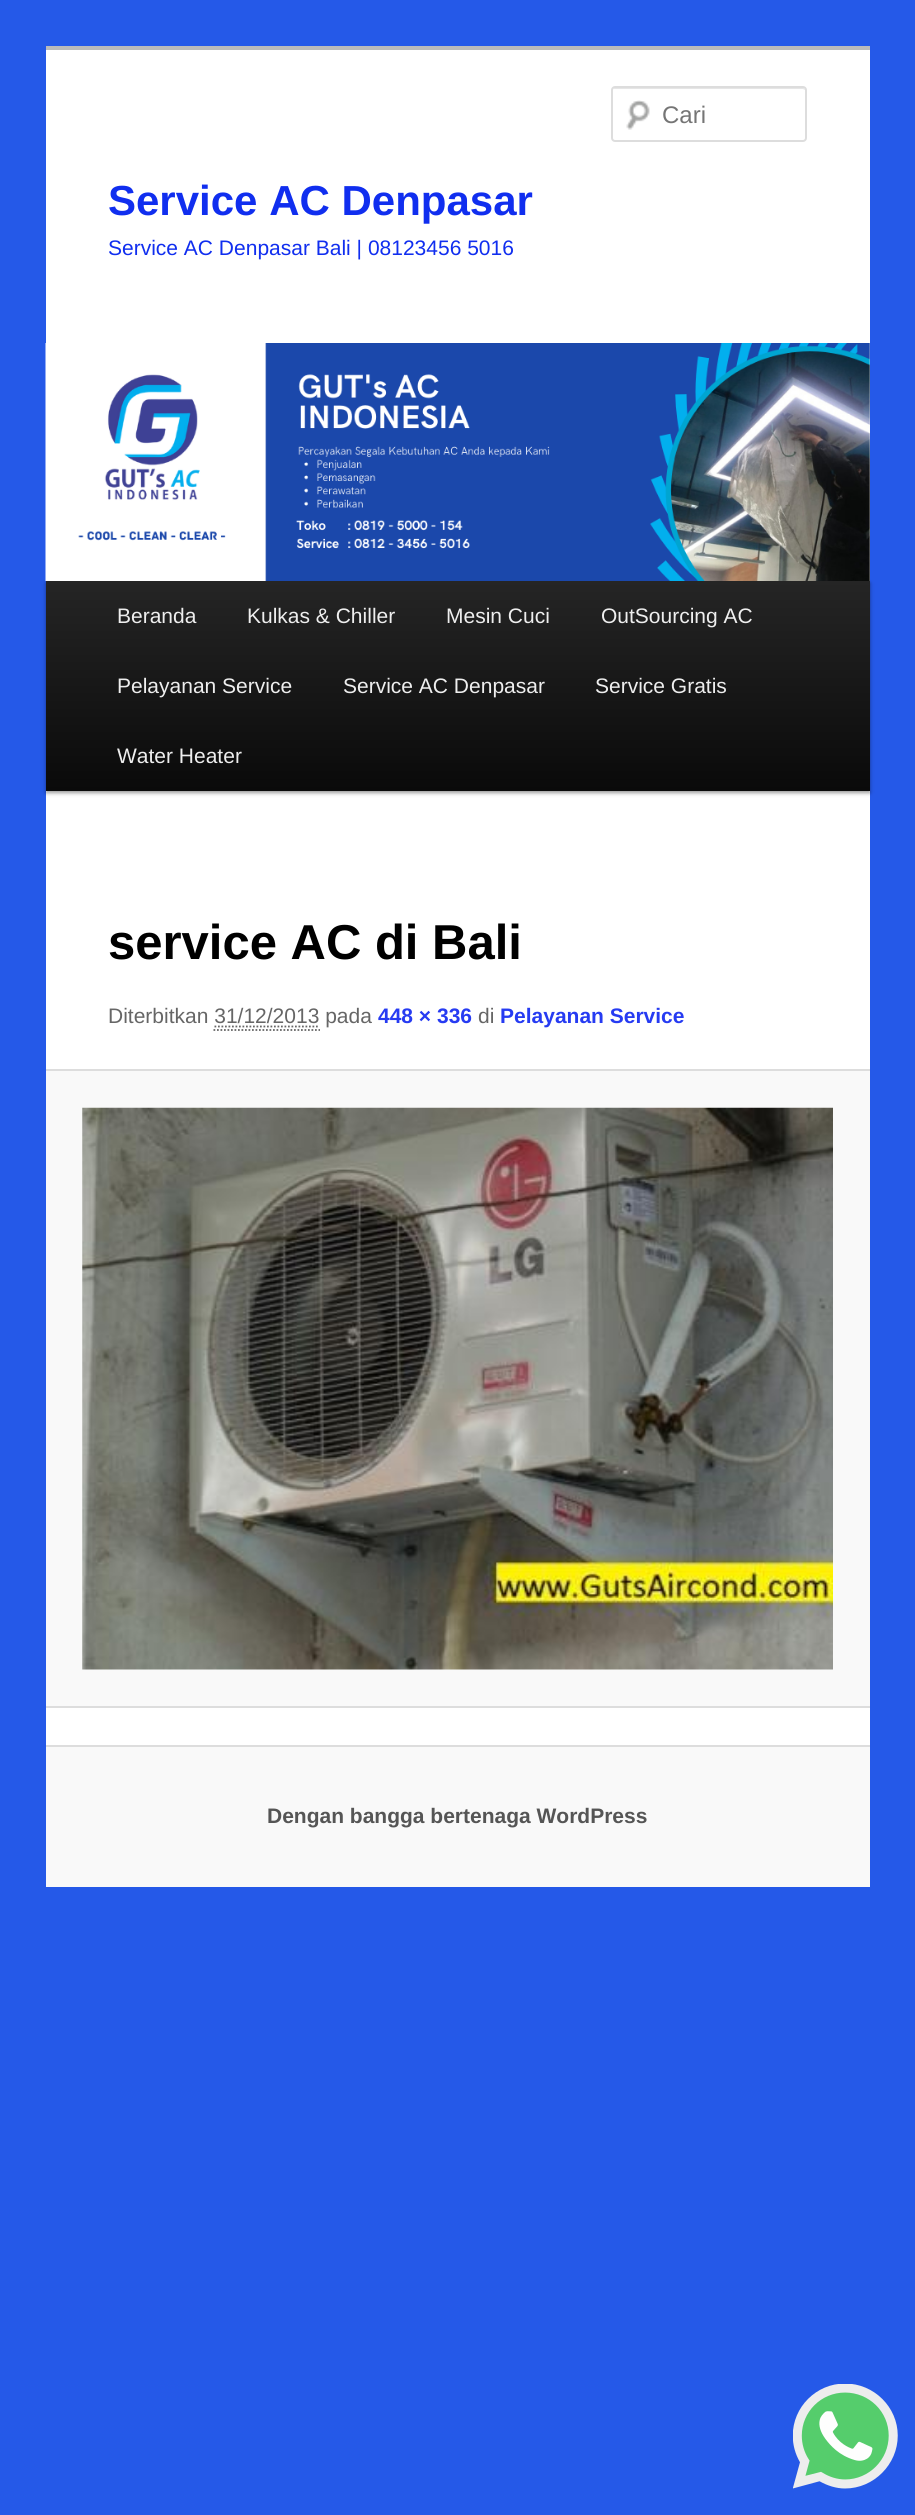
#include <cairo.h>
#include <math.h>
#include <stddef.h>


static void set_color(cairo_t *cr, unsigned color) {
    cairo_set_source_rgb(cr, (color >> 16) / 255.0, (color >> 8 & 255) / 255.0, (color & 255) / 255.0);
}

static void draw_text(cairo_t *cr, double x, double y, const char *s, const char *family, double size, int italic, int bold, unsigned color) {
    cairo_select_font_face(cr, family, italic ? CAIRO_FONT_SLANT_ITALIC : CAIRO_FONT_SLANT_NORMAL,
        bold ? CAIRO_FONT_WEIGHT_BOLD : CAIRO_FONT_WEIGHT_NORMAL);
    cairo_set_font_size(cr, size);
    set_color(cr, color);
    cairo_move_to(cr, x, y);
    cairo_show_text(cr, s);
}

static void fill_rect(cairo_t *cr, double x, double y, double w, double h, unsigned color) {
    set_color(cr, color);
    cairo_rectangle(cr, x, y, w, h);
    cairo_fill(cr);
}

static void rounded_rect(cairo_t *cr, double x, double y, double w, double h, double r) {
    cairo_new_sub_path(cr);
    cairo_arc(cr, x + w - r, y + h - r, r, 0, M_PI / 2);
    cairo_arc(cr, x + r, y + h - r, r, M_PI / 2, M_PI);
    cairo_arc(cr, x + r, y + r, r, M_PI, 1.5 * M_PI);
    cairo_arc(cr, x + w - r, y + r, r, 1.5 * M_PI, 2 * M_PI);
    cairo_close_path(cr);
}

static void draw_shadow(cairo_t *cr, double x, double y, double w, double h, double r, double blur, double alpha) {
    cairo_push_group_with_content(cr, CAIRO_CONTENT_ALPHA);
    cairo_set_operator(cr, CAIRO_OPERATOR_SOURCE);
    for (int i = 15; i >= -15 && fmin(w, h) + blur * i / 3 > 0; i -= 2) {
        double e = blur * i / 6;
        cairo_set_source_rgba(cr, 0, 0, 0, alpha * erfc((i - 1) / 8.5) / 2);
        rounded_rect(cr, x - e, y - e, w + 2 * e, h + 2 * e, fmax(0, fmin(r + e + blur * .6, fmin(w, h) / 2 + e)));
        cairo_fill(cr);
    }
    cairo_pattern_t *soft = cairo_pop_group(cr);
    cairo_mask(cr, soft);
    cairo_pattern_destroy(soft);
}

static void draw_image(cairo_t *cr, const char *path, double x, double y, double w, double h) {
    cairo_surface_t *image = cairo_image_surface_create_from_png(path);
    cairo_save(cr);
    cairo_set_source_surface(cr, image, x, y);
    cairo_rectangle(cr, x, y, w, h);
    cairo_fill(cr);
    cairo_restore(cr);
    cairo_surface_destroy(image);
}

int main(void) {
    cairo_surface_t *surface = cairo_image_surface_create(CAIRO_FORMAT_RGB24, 915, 2515);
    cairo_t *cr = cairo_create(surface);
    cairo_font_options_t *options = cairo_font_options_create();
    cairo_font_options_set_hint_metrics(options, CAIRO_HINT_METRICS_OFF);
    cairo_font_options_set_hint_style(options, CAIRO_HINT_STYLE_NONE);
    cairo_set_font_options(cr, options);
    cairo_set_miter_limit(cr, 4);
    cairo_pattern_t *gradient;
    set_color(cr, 0x2559E8);
    cairo_paint(cr);
    fill_rect(cr, 46, 50, 824, 1695, 0xFFFFFF);
    fill_rect(cr, 46, 46, 824, 4, 0xBBBBBB);
    draw_image(cr, "assets/img1.png", 626, 100, 24, 30);
    set_color(cr, 0xE6E6E6);
    cairo_new_path(cr);
    cairo_move_to(cr, 614, 89);
    cairo_line_to(cr, 803, 89);
    cairo_line_to(cr, 805, 90);
    cairo_line_to(cr, 805, 91);
    cairo_line_to(cr, 805, 90);
    cairo_curve_to(cr, 805, 89, 804, 88, 803, 88);
    cairo_line_to(cr, 615, 88);
    cairo_curve_to(cr, 614, 88, 613, 89, 613, 89);
    cairo_close_path(cr);
    cairo_fill(cr);
    rounded_rect(cr, 612, 87, 194, 54, 3);
    set_color(cr, 0xDDDDDD);
    cairo_stroke(cr);
    draw_text(cr, 662, 123, "Cari", "Liberation Sans", 24, 0, 0, 0x757575);
    draw_text(cr, 108, 215, "Service AC Denpasar", "Liberation Sans", 42, 0, 1, 0x102EEF);
    draw_text(cr, 108, 255, "Service AC Denpasar Bali | 08123456 5016", "Liberation Sans", 21, 0, 0, 0x102EEF);
    set_color(cr, 0x000000);
    draw_shadow(cr, 46, 583, 824, 210, 0, 2, 0.4);
    draw_image(cr, "assets/img2.png", 45, 343, 825, 238);
    gradient = cairo_pattern_create_linear(458, 581, 458, 791);
    cairo_pattern_add_color_stop_rgba(gradient, 0, 0.145, 0.145, 0.145, 1);
    cairo_pattern_add_color_stop_rgba(gradient, 1, 0.039, 0.039, 0.039, 1);
    cairo_set_source(cr, gradient);
    cairo_pattern_destroy(gradient);
    cairo_rectangle(cr, 46, 581, 824, 210);
    cairo_fill(cr);
    draw_text(cr, 117, 623, "Beranda", "Liberation Sans", 21, 0, 0, 0xEEEEEE);
    draw_text(cr, 247, 623, "Kulkas & Chiller", "Liberation Sans", 21, 0, 0, 0xEEEEEE);
    draw_text(cr, 446, 623, "Mesin Cuci", "Liberation Sans", 21, 0, 0, 0xEEEEEE);
    draw_text(cr, 601, 623, "OutSourcing AC", "Liberation Sans", 21, 0, 0, 0xEEEEEE);
    draw_text(cr, 117, 693, "Pelayanan Service", "Liberation Sans", 21, 0, 0, 0xEEEEEE);
    draw_text(cr, 343, 693, "Service AC Denpasar", "Liberation Sans", 21, 0, 0, 0xEEEEEE);
    draw_text(cr, 595, 693, "Service Gratis", "Liberation Sans", 21, 0, 0, 0xEEEEEE);
    draw_text(cr, 117, 763, "Water Heater", "Liberation Sans", 21, 0, 0, 0xEEEEEE);
    draw_text(cr, 108, 959, "service AC di Bali", "Liberation Sans", 49, 0, 1, 0x000000);
    draw_text(cr, 108, 1023, "Diterbitkan 31/12/2013 pada", "Liberation Sans", 21, 0, 0, 0x666666);
    draw_text(cr, 378, 1023, "448 × 336", "Liberation Sans", 21, 0, 1, 0x263BF2);
    draw_text(cr, 478, 1023, "di", "Liberation Sans", 21, 0, 0, 0x666666);
    draw_text(cr, 500, 1023, "Pelayanan Service", "Liberation Sans", 21, 0, 1, 0x263BF2);
    cairo_new_path(cr);
    cairo_move_to(cr, 214.5, 1026.5);
    cairo_line_to(cr, 319.5, 1026.5);
    set_color(cr, 0x666666);
    cairo_set_line_width(cr, 1.8);
    cairo_set_dash(cr, (double[]){1.75, 1.75}, 2, 0);
    cairo_stroke(cr);
    cairo_new_path(cr);
    cairo_move_to(cr, 213.5, 1030);
    cairo_line_to(cr, 320, 1030);
    cairo_stroke(cr);
    fill_rect(cr, 46, 1071, 824, 635, 0xF9F9F9);
    fill_rect(cr, 46, 1069, 824, 2, 0xDDDDDD);
    fill_rect(cr, 46, 1706, 824, 2, 0xDDDDDD);
    draw_image(cr, "assets/img3.png", 82, 1107, 751, 563);
    fill_rect(cr, 46, 1747, 824, 140, 0xF9F9F9);
    fill_rect(cr, 46, 1745, 824, 2, 0xDDDDDD);
    draw_text(cr, 267, 1823, "Dengan bangga bertenaga WordPress", "Liberation Sans", 21, 0, 1, 0x555555);
    draw_image(cr, "assets/img4.png", 793, 2384, 105, 105);
    cairo_surface_write_to_png(surface, "output.png");
    cairo_font_options_destroy(options);
    cairo_destroy(cr);
    cairo_surface_destroy(surface);
    return 0;
}
